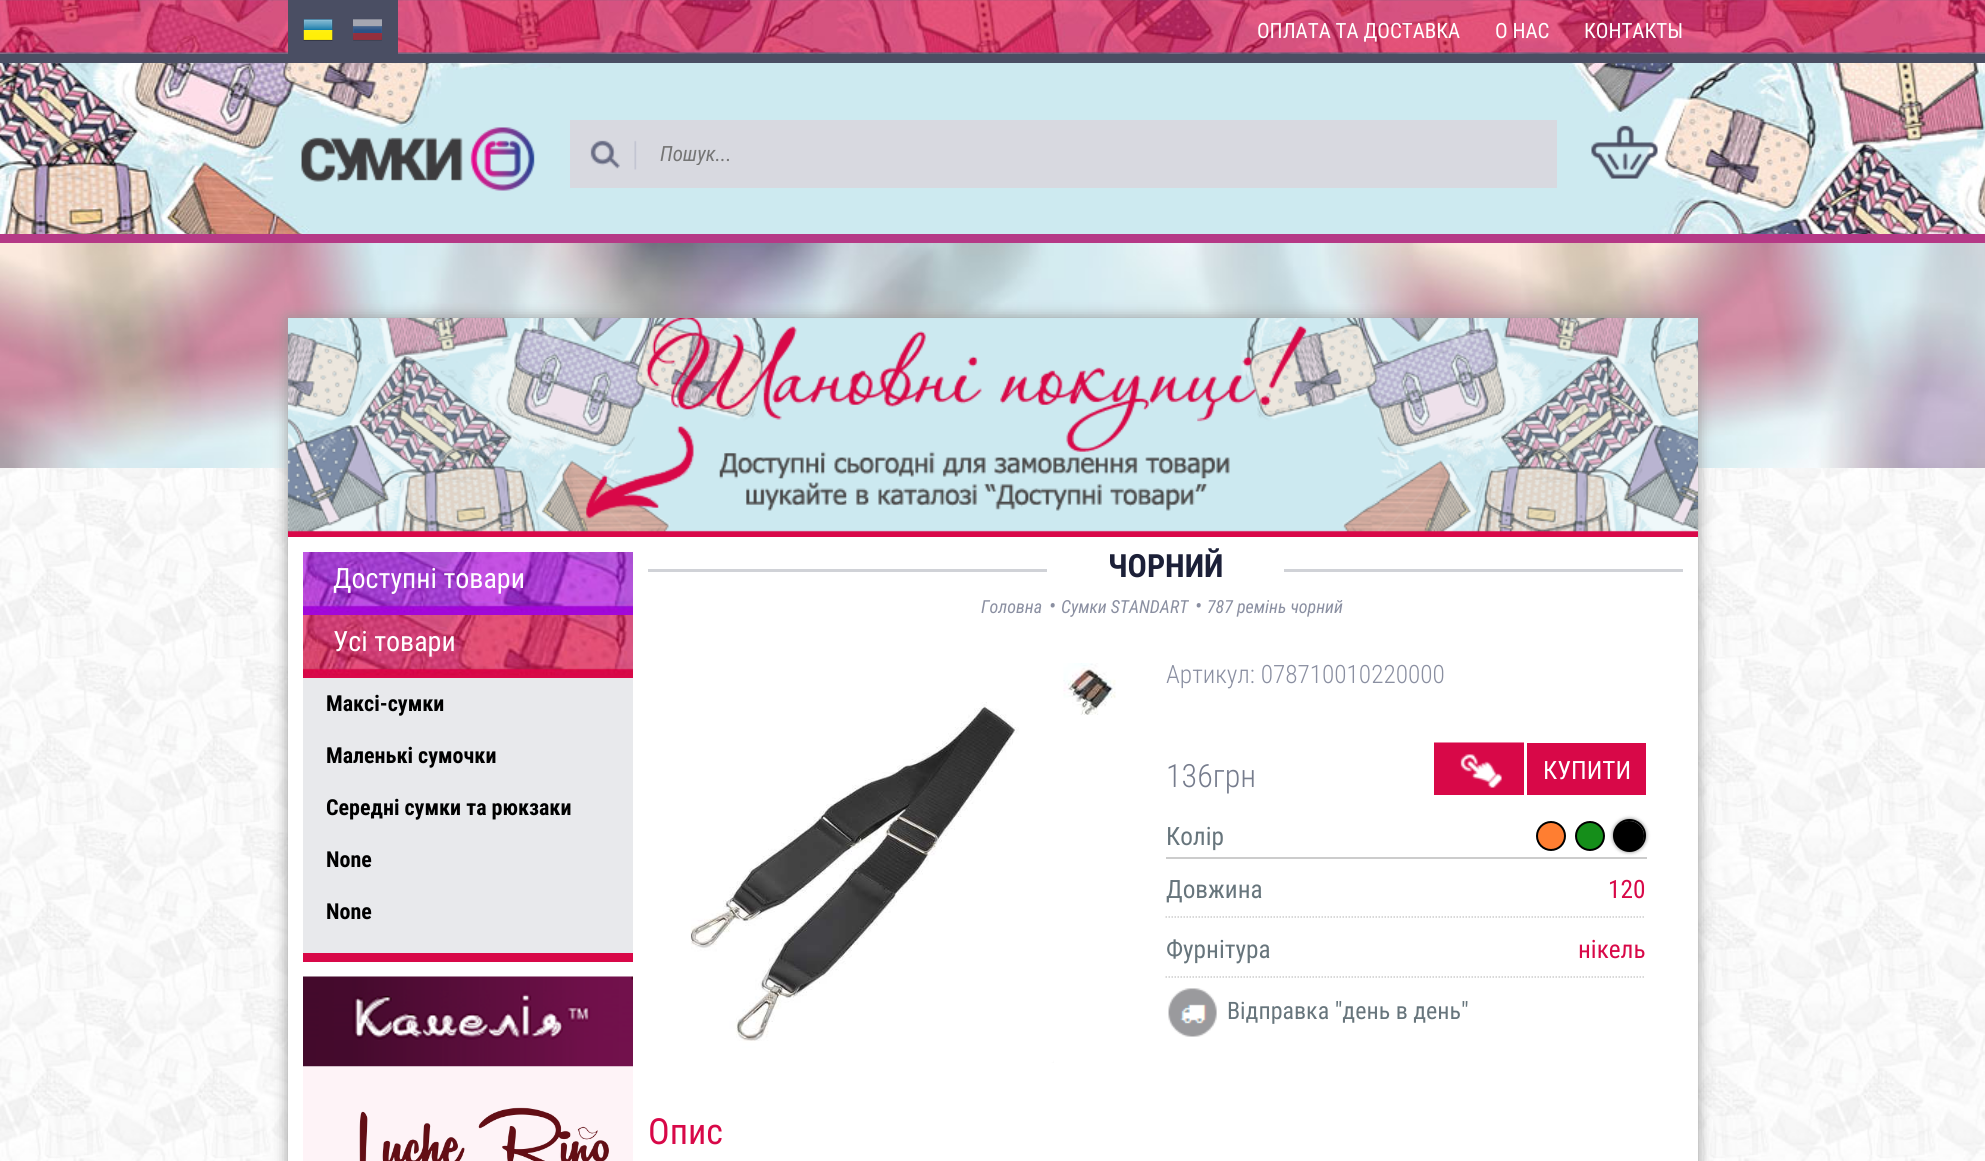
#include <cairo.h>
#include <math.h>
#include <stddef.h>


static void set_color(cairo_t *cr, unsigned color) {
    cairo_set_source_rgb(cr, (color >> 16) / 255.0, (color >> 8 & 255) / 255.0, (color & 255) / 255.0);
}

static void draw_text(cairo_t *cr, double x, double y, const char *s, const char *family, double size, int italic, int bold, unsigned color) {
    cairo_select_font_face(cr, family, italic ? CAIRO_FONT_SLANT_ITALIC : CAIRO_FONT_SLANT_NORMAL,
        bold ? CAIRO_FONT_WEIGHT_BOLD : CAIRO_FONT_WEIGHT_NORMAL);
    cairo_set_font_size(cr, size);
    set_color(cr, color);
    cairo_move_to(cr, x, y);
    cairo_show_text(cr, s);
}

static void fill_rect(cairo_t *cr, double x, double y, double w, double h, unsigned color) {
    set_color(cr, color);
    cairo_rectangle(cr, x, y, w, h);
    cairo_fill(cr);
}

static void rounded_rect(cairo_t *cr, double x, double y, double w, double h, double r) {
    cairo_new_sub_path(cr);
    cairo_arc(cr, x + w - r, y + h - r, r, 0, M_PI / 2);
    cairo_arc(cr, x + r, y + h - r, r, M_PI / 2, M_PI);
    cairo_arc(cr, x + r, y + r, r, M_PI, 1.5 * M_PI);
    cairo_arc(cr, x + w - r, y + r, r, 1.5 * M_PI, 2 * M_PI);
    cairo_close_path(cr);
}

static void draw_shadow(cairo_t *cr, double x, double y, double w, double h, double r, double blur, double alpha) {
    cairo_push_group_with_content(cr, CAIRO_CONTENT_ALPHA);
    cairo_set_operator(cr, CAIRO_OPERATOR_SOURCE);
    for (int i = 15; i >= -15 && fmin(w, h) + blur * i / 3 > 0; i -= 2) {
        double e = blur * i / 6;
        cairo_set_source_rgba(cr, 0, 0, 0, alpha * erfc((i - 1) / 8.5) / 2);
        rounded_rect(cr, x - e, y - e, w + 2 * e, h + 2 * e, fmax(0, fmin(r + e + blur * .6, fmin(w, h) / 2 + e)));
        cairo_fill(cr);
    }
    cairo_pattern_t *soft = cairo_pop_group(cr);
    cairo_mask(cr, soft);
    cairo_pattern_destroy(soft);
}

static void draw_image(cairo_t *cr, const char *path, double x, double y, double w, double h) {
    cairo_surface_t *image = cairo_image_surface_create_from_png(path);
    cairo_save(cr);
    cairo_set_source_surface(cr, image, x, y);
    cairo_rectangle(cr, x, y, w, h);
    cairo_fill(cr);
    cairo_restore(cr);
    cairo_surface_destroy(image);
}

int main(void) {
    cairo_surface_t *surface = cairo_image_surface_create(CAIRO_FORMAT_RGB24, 1985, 1161);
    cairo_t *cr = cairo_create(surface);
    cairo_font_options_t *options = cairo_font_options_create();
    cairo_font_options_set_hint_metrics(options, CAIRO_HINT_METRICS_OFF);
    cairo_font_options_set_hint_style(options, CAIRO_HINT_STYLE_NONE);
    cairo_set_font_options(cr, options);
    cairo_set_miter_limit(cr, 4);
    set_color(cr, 0xFFFFFF);
    cairo_paint(cr);
    draw_image(cr, "assets/img1.png", 0, 468, 1985, 693);
    draw_image(cr, "assets/img2.png", 0, 0, 1985, 54);
    fill_rect(cr, 0, 54, 1985, 9, 0x4A4E63);
    fill_rect(cr, 288, 0, 110, 54, 0x4A4E63);
    draw_image(cr, "assets/img3.png", 303, 19, 30, 22);
    draw_image(cr, "assets/img4.png", 353, 19, 29, 22);
    draw_text(cr, 1257, 38, "ОПЛАТА ТА ДОСТАВКА", "Roboto Condensed", 21, 0, 0, 0xFFFFFF);
    draw_text(cr, 1495, 38, "О НАС", "Roboto Condensed", 21, 0, 0, 0xFFFFFF);
    draw_text(cr, 1584, 38, "КОНТАКТЫ", "Roboto Condensed", 21, 0, 0, 0xFFFFFF);
    draw_image(cr, "assets/img5.png", 0, 63, 1985, 171);
    fill_rect(cr, 0, 234, 1985, 9, 0xB53986);
    draw_image(cr, "assets/img6.png", 301, 127, 234, 64);
    fill_rect(cr, 570, 120, 987, 68, 0xD8D9E0);
    draw_image(cr, "assets/img7.png", 590, 140, 47, 30);
    cairo_save(cr);
    cairo_rectangle(cr, 660, 141, 894, 24);
    cairo_clip(cr);
    draw_text(cr, 660, 161, "Пошук...", "Roboto Condensed", 21, 1, 0, 0x757575);
    cairo_restore(cr);
    draw_image(cr, "assets/img8.png", 1591, 125, 67, 54);
    draw_image(cr, "assets/img9.png", 0, 243, 1985, 225);
    set_color(cr, 0x969696);
    draw_shadow(cr, 288, 318, 1410, 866, 0, 7.5, 1);
    fill_rect(cr, 288, 537, 1410, 624, 0xFFFFFF);
    draw_image(cr, "assets/img10.png", 288, 318, 1410, 219);
    draw_image(cr, "assets/img11.png", 303, 552, 330, 63);
    draw_text(cr, 333, 588, "Доступні товари", "Roboto Condensed", 28, 0, 0, 0xFFFFFF);
    draw_image(cr, "assets/img12.png", 303, 615, 330, 63);
    draw_text(cr, 333, 651, "Усі товари", "Roboto Condensed", 28, 0, 0, 0xFFFFFF);
    fill_rect(cr, 303, 678, 330, 275, 0xE8E9EC);
    fill_rect(cr, 303, 953, 330, 9, 0xD80848);
    draw_text(cr, 326, 711, "Максі-сумки", "Roboto Condensed", 22, 0, 1, 0x000000);
    draw_text(cr, 326, 763, "Маленькі сумочки", "Roboto Condensed", 22, 0, 1, 0x000000);
    draw_text(cr, 326, 815, "Середні сумки та рюкзаки", "Roboto Condensed", 22, 0, 1, 0x000000);
    draw_text(cr, 326, 867, "None", "Roboto Condensed", 22, 0, 1, 0x000000);
    draw_text(cr, 326, 919, "None", "Roboto Condensed", 22, 0, 1, 0x000000);
    draw_image(cr, "assets/img13.png", 303, 976, 330, 91);
    draw_image(cr, "assets/img14.png", 303, 1066, 330, 95);
    fill_rect(cr, 648, 569, 1035, 3, 0xD0D2D7);
    fill_rect(cr, 1047, 569, 237, 3, 0xFFFFFF);
    draw_text(cr, 1108, 577, "ЧОРНИЙ", "Roboto Condensed", 32, 0, 1, 0x1C2038);
    draw_text(cr, 981, 613, "Головна", "Roboto Condensed", 18, 1, 0, 0x8A8FA1);
    draw_text(cr, 1049, 613, "•", "Roboto Condensed", 21, 1, 0, 0x8A8FA1);
    draw_text(cr, 1061, 613, "Сумки STANDART", "Roboto Condensed", 18, 1, 0, 0x8A8FA1);
    draw_text(cr, 1195, 613, "•", "Roboto Condensed", 21, 1, 0, 0x8A8FA1);
    draw_text(cr, 1207, 613, "787 ремінь чорний", "Roboto Condensed", 18, 1, 0, 0x8A8FA1);
    draw_image(cr, "assets/img15.png", 1063, 663, 53, 52);
    draw_image(cr, "assets/img16.png", 690, 702, 364, 361);
    draw_text(cr, 1166, 683, "Артикул: 078710010220000", "Roboto Condensed Light", 25.25, 0, 0, 0x8A8FA1);
    draw_text(cr, 1166, 787, "136грн", "Roboto Condensed Light", 32, 0, 0, 0x767C8D);
    draw_image(cr, "assets/img17.png", 1434, 742, 90, 53);
    fill_rect(cr, 1527, 743, 119, 52, 0xD80848);
    draw_text(cr, 1543, 779, "КУПИТИ", "Roboto Condensed", 25.25, 0, 0, 0xFFFFFF);
    fill_rect(cr, 1166, 857, 481, 2, 0xCCCCCC);
    set_color(cr, 0xFF7E31);
    cairo_new_path(cr);
    cairo_arc(cr, 1551, 836, 14, 0, 2 * M_PI);
    cairo_fill_preserve(cr);
    set_color(cr, 0x000000);
    cairo_stroke(cr);
    set_color(cr, 0x158E1A);
    cairo_arc(cr, 1590, 836, 14, 0, 2 * M_PI);
    cairo_fill_preserve(cr);
    set_color(cr, 0x000000);
    cairo_stroke(cr);
    set_color(cr, 0x000000);
    draw_shadow(cr, 1613, 819, 33, 33, 16.5, 2, 0.5);
    cairo_arc(cr, 1629.5, 835.5, 15.5, 0, 2 * M_PI);
    set_color(cr, 0x000000);
    cairo_stroke(cr);
    cairo_arc(cr, 1629, 836, 14, 0, 2 * M_PI);
    cairo_fill_preserve(cr);
    cairo_stroke(cr);
    draw_text(cr, 1166, 845, "Колір", "Roboto Condensed", 25.25, 0, 0, 0x67757C);
    cairo_new_path(cr);
    cairo_move_to(cr, 1165.5, 917);
    cairo_line_to(cr, 1645.5, 917);
    set_color(cr, 0xCCCCCC);
    cairo_set_line_width(cr, 1.5);
    cairo_set_dash(cr, (double[]){1.5, 1.5}, 2, 0);
    cairo_stroke(cr);
    draw_text(cr, 1166, 898, "Довжина", "Roboto Condensed", 25.25, 0, 0, 0x67757C);
    draw_text(cr, 1608, 898, "120", "Roboto Condensed", 25.25, 0, 0, 0xD80848);
    cairo_new_path(cr);
    cairo_move_to(cr, 1165.5, 977);
    cairo_line_to(cr, 1645.5, 977);
    set_color(cr, 0xCCCCCC);
    cairo_stroke(cr);
    draw_text(cr, 1166, 958, "Фурнітура", "Roboto Condensed", 25.25, 0, 0, 0x67757C);
    draw_text(cr, 1578, 958, "нікель", "Roboto Condensed", 25.25, 0, 0, 0xD80848);
    draw_image(cr, "assets/img18.png", 1168, 988, 49, 49);
    draw_text(cr, 1227, 1019, "Відправка \"день в день\"", "Roboto Condensed", 24, 0, 0, 0x67757C);
    draw_text(cr, 648, 1144, "Опис", "Roboto Condensed", 36, 0, 0, 0xD80848);
    cairo_surface_write_to_png(surface, "output.png");
    cairo_font_options_destroy(options);
    cairo_destroy(cr);
    cairo_surface_destroy(surface);
    return 0;
}
